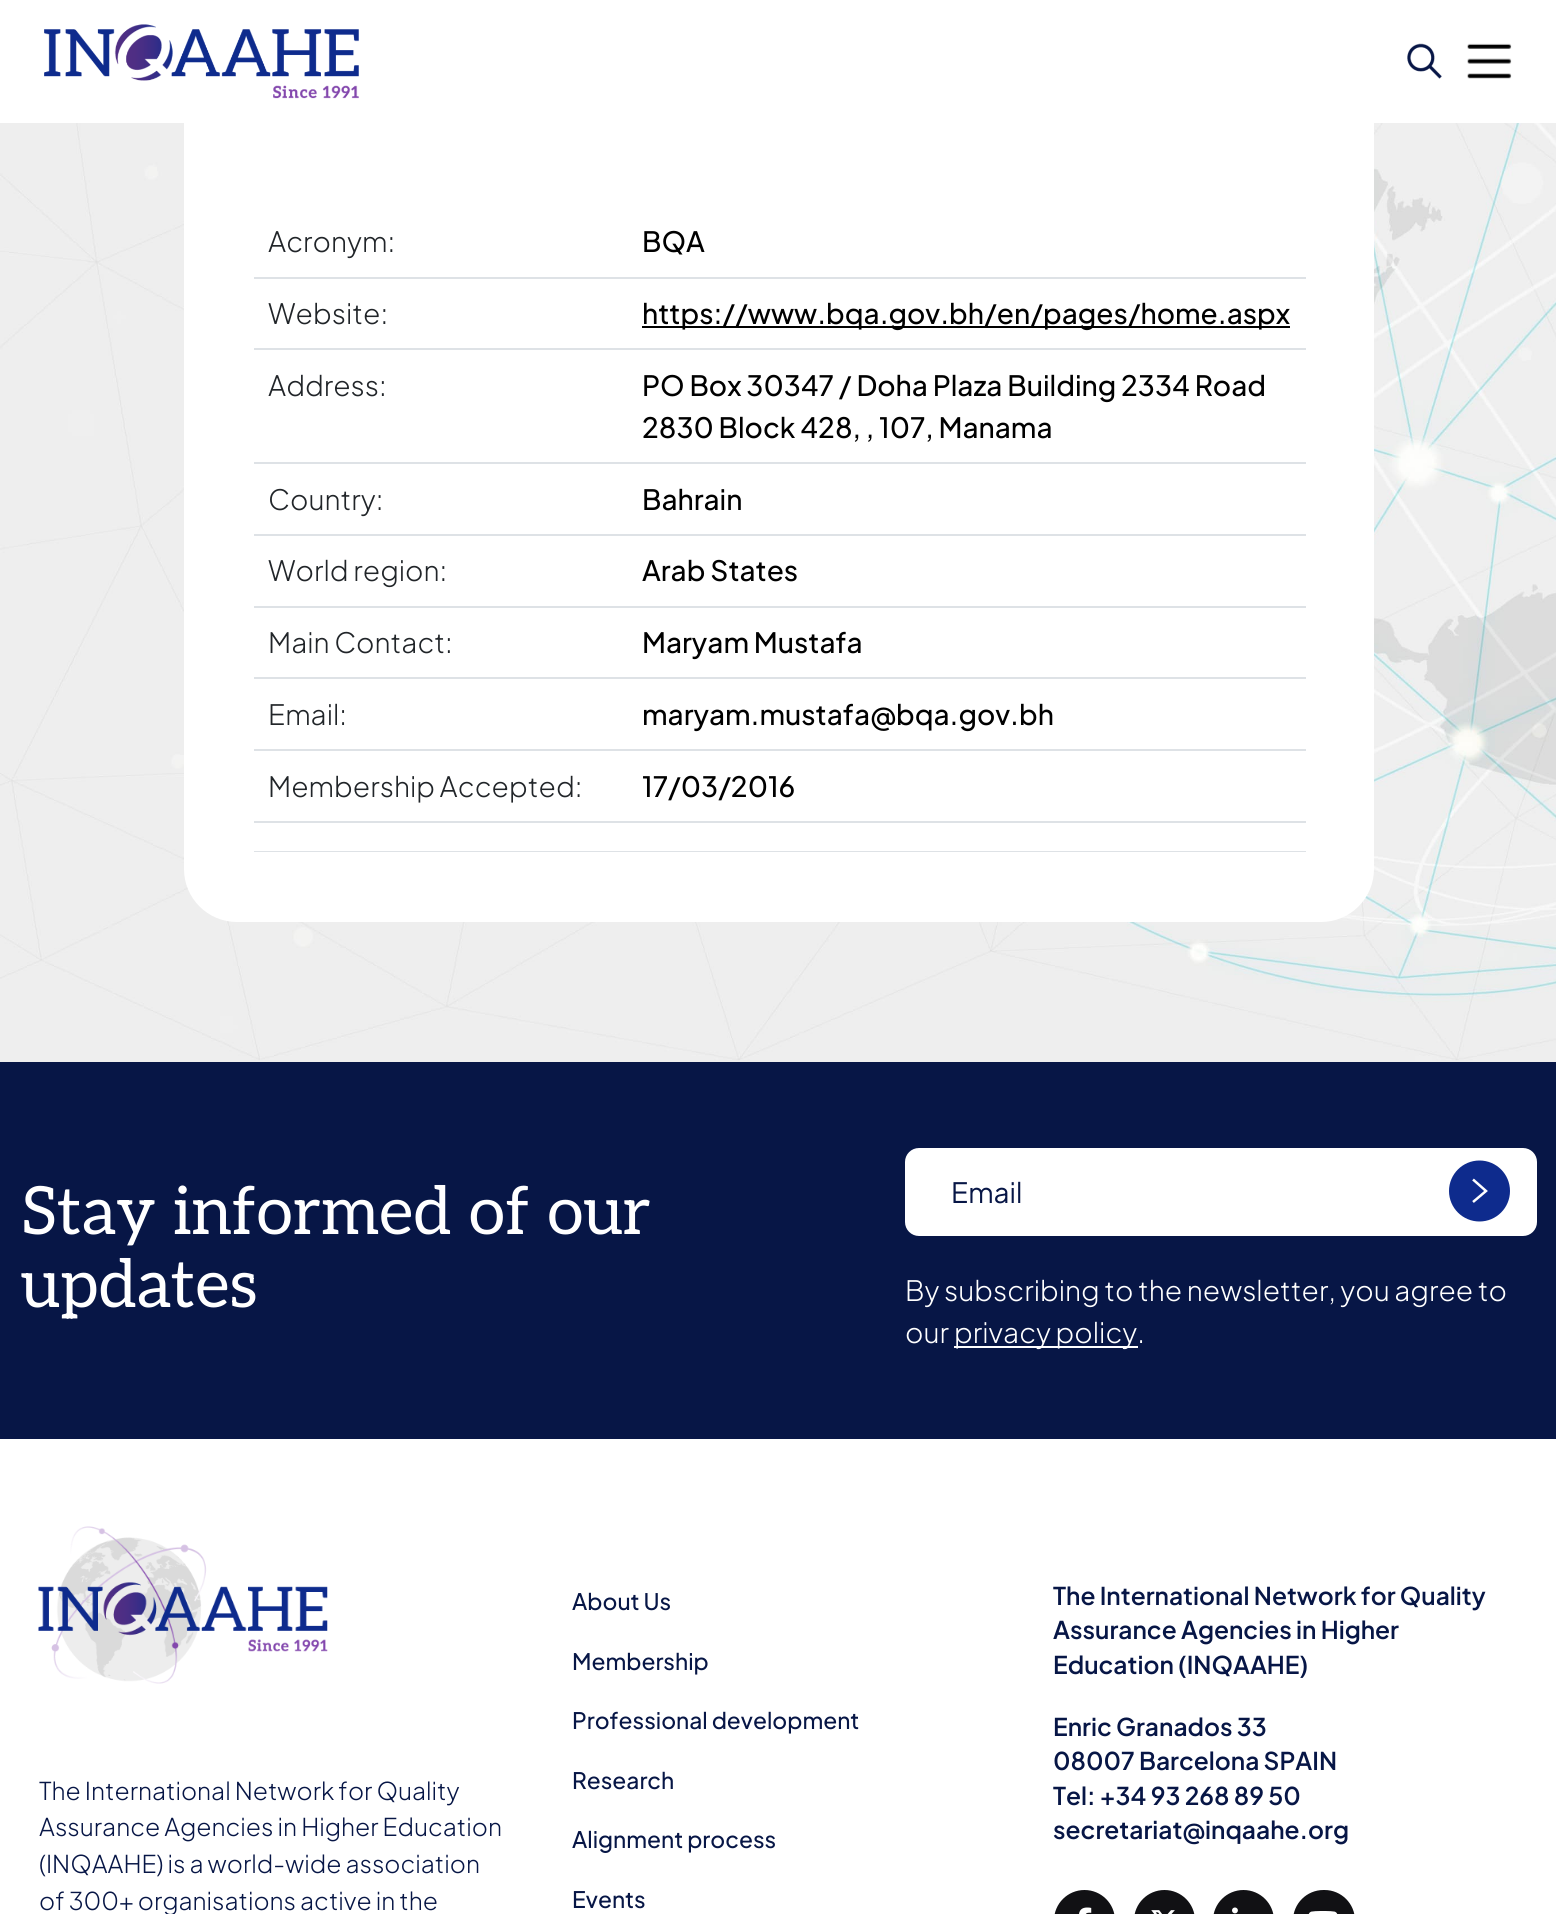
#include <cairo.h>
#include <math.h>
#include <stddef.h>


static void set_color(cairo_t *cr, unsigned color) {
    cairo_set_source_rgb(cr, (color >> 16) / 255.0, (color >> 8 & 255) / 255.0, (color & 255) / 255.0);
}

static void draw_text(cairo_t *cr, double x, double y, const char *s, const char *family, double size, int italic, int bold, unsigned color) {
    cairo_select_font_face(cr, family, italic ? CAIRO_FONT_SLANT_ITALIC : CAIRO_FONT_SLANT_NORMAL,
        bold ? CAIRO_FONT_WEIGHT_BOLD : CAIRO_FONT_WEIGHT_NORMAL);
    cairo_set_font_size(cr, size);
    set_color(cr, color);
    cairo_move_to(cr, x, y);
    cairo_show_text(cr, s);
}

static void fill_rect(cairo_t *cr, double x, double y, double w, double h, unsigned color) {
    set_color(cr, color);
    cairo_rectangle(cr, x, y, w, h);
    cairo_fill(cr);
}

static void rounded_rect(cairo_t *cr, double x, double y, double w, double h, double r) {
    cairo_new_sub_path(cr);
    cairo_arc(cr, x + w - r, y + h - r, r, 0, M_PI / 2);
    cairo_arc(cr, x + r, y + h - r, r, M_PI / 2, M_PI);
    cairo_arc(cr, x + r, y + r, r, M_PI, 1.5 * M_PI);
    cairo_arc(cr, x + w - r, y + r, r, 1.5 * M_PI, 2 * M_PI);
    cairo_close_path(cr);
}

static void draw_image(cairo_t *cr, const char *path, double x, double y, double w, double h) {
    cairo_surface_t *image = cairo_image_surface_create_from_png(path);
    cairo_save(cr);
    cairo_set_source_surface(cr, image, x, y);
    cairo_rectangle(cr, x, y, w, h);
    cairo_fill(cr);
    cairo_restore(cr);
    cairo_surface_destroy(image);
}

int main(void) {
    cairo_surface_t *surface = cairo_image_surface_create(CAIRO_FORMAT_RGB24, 1556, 1914);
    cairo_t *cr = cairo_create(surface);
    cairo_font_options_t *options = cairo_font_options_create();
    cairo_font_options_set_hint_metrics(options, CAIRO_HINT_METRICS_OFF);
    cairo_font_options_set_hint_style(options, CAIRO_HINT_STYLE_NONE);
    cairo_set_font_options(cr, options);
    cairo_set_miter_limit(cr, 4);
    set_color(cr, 0xFFFFFF);
    cairo_paint(cr);
    draw_image(cr, "assets/img4.png", 0, 123, 1556, 939);
    set_color(cr, 0xFFFFFF);
    rounded_rect(cr, 184, -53, 1190, 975, 53);
    cairo_fill(cr);
    draw_image(cr, "assets/img1.png", 44, 24, 315, 75);
    draw_image(cr, "assets/img2.png", 1407, 43, 35, 36);
    draw_image(cr, "assets/img3.png", 1467, 43, 45, 36);
    draw_text(cr, 268, 252, "Acronym:", "Plus Jakarta Sans Light", 28, 0, 0, 0x212529);
    fill_rect(cr, 254, 277, 1052, 2, 0xDEE2E6);
    draw_text(cr, 642, 252, "BQA", "Plus Jakarta Sans Medium", 28, 0, 0, 0x000000);
    draw_text(cr, 268, 324, "Website:", "Plus Jakarta Sans Light", 28, 0, 0, 0x212529);
    fill_rect(cr, 254, 348, 1052, 2, 0xDEE2E6);
    fill_rect(cr, 642, 326, 648, 2, 0x000000);
    draw_text(cr, 642, 324, "https://www.bqa.gov.bh/en/pages/home.aspx", "Plus Jakarta Sans Medium", 28, 0, 0, 0x000000);
    draw_text(cr, 268, 396, "Address:", "Plus Jakarta Sans Light", 28, 0, 0, 0x212529);
    fill_rect(cr, 254, 462, 1052, 2, 0xDEE2E6);
    draw_text(cr, 642, 396, "PO Box 30347 / Doha Plaza Building 2334 Road", "Plus Jakarta Sans Medium", 28, 0, 0, 0x000000);
    draw_text(cr, 642, 438, "2830 Block 428, , 107, Manama", "Plus Jakarta Sans Medium", 28, 0, 0, 0x000000);
    draw_text(cr, 268, 510, "Country:", "Plus Jakarta Sans Light", 28, 0, 0, 0x212529);
    fill_rect(cr, 254, 534, 1052, 2, 0xDEE2E6);
    draw_text(cr, 642, 510, "Bahrain", "Plus Jakarta Sans Medium", 28, 0, 0, 0x000000);
    draw_text(cr, 268, 581, "World region:", "Plus Jakarta Sans Light", 28, 0, 0, 0x212529);
    fill_rect(cr, 254, 606, 1052, 2, 0xDEE2E6);
    draw_text(cr, 642, 581, "Arab States", "Plus Jakarta Sans Medium", 28, 0, 0, 0x000000);
    draw_text(cr, 268, 653, "Main Contact:", "Plus Jakarta Sans Light", 28, 0, 0, 0x212529);
    fill_rect(cr, 254, 677, 1052, 2, 0xDEE2E6);
    draw_text(cr, 642, 653, "Maryam Mustafa", "Plus Jakarta Sans Medium", 28, 0, 0, 0x000000);
    draw_text(cr, 268, 725, "Email:", "Plus Jakarta Sans Light", 28, 0, 0, 0x212529);
    fill_rect(cr, 254, 749, 1052, 2, 0xDEE2E6);
    draw_text(cr, 642, 725, "maryam.mustafa@bqa.gov.bh", "Plus Jakarta Sans Medium", 28, 0, 0, 0x000000);
    draw_text(cr, 268, 797, "Membership Accepted:", "Plus Jakarta Sans Light", 28, 0, 0, 0x212529);
    fill_rect(cr, 254, 821, 1052, 2, 0xDEE2E6);
    draw_text(cr, 642, 797, "17/03/2016", "Plus Jakarta Sans Medium", 28, 0, 0, 0x000000);
    fill_rect(cr, 254, 851, 1052, 1, 0xDEE2E6);
    fill_rect(cr, 0, 1062, 1556, 377, 0x071646);
    draw_text(cr, 21, 1234, "Stay informed of our", "Aleo", 66.5, 0, 0, 0xFFFFFF);
    draw_text(cr, 21, 1307, "updates", "Aleo", 66.5, 0, 0, 0xFFFFFF);
    rounded_rect(cr, 906, 1149, 630, 86, 13);
    cairo_fill_preserve(cr);
    cairo_stroke(cr);
    draw_text(cr, 951, 1203, "Email", "Plus Jakarta Sans", 28, 0, 0, 0x071646);
    set_color(cr, 0x0E2B8D);
    cairo_new_path(cr);
    cairo_arc(cr, 1479.5, 1191, 30.5, 0, 2 * M_PI);
    cairo_fill(cr);
    cairo_new_path(cr);
    cairo_move_to(cr, 1473, 1179.5);
    cairo_line_to(cr, 1486, 1191);
    cairo_line_to(cr, 1473, 1202);
    set_color(cr, 0xFFFFFF);
    cairo_set_line_width(cr, 2.5);
    cairo_stroke(cr);
    draw_text(cr, 905, 1301, "By subscribing to the newsletter, you agree to", "Plus Jakarta Sans Light", 28, 0, 0, 0xFFFFFF);
    draw_text(cr, 905, 1343, "our", "Plus Jakarta Sans Light", 28, 0, 0, 0xFFFFFF);
    fill_rect(cr, 954, 1346, 184, 2, 0xFFFFFF);
    draw_text(cr, 954, 1343, "privacy policy.", "Plus Jakarta Sans Light", 28, 0, 0, 0xFFFFFF);
    draw_image(cr, "assets/img5.png", 38, 1526, 290, 158);
    draw_text(cr, 39, 1800, "The International Network for Quality", "Plus Jakarta Sans Light", 24.5, 0, 0, 0x071646);
    draw_text(cr, 39, 1836, "Assurance Agencies in Higher Education", "Plus Jakarta Sans Light", 24.5, 0, 0, 0x071646);
    draw_text(cr, 39, 1873, "(INQAAHE) is a world-wide association", "Plus Jakarta Sans Light", 24.5, 0, 0, 0x071646);
    draw_text(cr, 39, 1910, "of 300+ organisations active in the", "Plus Jakarta Sans Light", 24.5, 0, 0, 0x071646);
    draw_text(cr, 572, 1610, "About Us", "Plus Jakarta Sans Medium", 22.75, 0, 0, 0x071646);
    draw_text(cr, 572, 1670, "Membership", "Plus Jakarta Sans Medium", 22.75, 0, 0, 0x071646);
    draw_text(cr, 572, 1729, "Professional development", "Plus Jakarta Sans Medium", 22.75, 0, 0, 0x071646);
    draw_text(cr, 572, 1789, "Research", "Plus Jakarta Sans Medium", 22.75, 0, 0, 0x071646);
    draw_text(cr, 572, 1848, "Alignment process", "Plus Jakarta Sans Medium", 22.75, 0, 0, 0x071646);
    draw_text(cr, 572, 1908, "Events", "Plus Jakarta Sans Medium", 22.75, 0, 0, 0x071646);
    draw_text(cr, 1053, 1605, "The International Network for Quality", "Plus Jakarta Sans SemiBold", 24.5, 0, 0, 0x071646);
    draw_text(cr, 1053, 1639, "Assurance Agencies in Higher", "Plus Jakarta Sans SemiBold", 24.5, 0, 0, 0x071646);
    draw_text(cr, 1053, 1674, "Education (INQAAHE)", "Plus Jakarta Sans SemiBold", 24.5, 0, 0, 0x071646);
    draw_text(cr, 1053, 1736, "Enric Granados 33", "Plus Jakarta Sans SemiBold", 24.5, 0, 0, 0x071646);
    draw_text(cr, 1053, 1770, "08007 Barcelona SPAIN", "Plus Jakarta Sans SemiBold", 24.5, 0, 0, 0x071646);
    draw_text(cr, 1053, 1805, "Tel: +34 93 268 89 50", "Plus Jakarta Sans SemiBold", 24.5, 0, 0, 0x071646);
    draw_text(cr, 1053, 1839, "secretariat@inqaahe.org", "Plus Jakarta Sans SemiBold", 24.5, 0, 0, 0x071646);
    set_color(cr, 0x111114);
    rounded_rect(cr, 1055, 1891, 59, 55, 29.5);
    cairo_fill_preserve(cr);
    cairo_set_line_width(cr, 2);
    cairo_stroke(cr);
    draw_image(cr, "assets/img6.png", 1079, 1907, 13, 7);
    rounded_rect(cr, 1135, 1891, 59, 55, 29.5);
    cairo_fill_preserve(cr);
    cairo_stroke(cr);
    draw_image(cr, "assets/img7.png", 1151, 1910, 24, 4);
    rounded_rect(cr, 1214, 1891, 59, 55, 29.5);
    cairo_fill_preserve(cr);
    cairo_stroke(cr);
    draw_image(cr, "assets/img8.png", 1232, 1907, 6, 7);
    rounded_rect(cr, 1294, 1891, 60, 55, 29.5);
    cairo_fill_preserve(cr);
    cairo_stroke(cr);
    draw_image(cr, "assets/img9.png", 1308, 1911, 30, 3);
    cairo_surface_write_to_png(surface, "output.png");
    cairo_font_options_destroy(options);
    cairo_destroy(cr);
    cairo_surface_destroy(surface);
    return 0;
}
